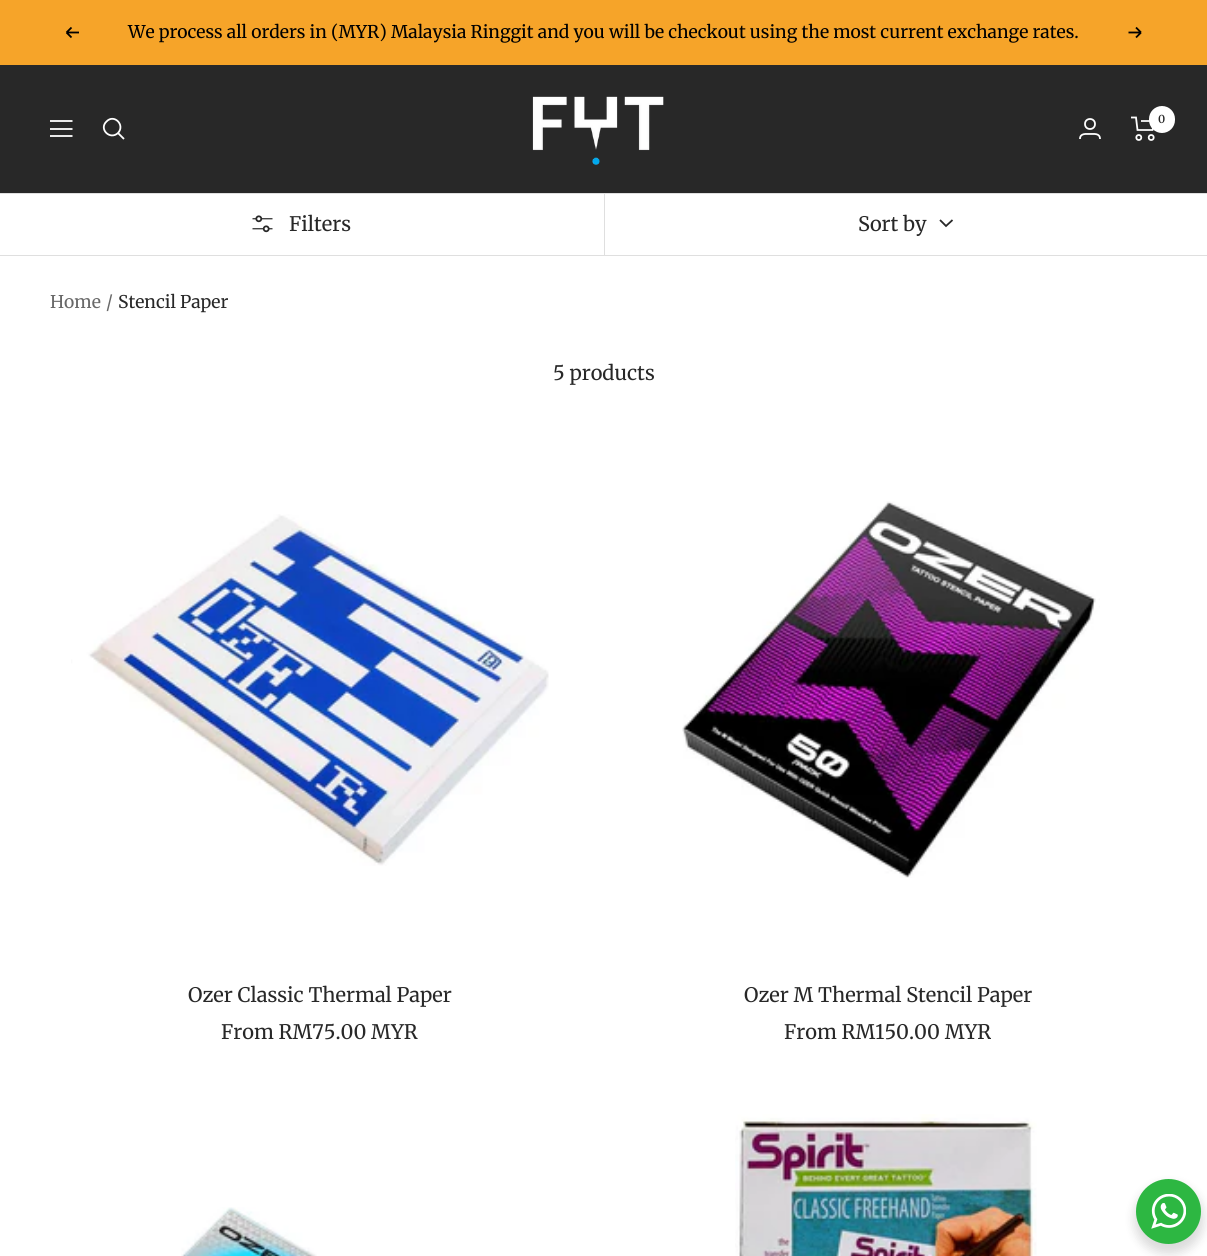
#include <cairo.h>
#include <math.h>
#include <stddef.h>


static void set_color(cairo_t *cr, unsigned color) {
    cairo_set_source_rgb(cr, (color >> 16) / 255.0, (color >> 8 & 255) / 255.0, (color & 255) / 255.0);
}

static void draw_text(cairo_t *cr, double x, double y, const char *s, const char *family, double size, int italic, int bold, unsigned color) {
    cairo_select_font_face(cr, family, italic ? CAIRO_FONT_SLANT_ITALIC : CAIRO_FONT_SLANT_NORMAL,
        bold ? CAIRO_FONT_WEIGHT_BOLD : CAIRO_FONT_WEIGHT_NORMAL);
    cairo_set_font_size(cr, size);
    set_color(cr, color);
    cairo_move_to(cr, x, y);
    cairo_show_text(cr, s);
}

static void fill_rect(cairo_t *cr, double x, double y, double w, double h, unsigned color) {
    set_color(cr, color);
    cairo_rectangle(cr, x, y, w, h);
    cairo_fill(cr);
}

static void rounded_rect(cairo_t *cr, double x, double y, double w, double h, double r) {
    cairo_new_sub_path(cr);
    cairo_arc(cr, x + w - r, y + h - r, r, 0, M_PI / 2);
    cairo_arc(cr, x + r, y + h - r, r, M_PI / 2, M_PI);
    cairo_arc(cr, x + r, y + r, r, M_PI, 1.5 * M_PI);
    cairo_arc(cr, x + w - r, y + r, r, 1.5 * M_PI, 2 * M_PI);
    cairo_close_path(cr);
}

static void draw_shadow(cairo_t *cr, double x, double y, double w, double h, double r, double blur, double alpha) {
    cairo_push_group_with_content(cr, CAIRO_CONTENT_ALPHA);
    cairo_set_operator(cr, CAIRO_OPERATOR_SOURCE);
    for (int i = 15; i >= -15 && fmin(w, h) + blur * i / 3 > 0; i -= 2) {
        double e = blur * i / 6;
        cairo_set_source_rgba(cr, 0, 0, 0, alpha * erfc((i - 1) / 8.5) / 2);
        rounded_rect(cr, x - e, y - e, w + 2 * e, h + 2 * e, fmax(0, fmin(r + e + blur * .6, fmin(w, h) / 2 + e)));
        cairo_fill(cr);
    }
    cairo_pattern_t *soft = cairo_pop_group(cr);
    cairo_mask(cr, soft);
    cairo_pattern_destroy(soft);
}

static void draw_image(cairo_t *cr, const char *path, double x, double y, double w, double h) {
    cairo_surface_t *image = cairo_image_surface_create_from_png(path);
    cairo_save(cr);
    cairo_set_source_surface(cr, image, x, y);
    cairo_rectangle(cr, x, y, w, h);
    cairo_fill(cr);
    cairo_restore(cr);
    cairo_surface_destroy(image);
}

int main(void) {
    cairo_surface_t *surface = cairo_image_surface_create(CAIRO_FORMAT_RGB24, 1207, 1256);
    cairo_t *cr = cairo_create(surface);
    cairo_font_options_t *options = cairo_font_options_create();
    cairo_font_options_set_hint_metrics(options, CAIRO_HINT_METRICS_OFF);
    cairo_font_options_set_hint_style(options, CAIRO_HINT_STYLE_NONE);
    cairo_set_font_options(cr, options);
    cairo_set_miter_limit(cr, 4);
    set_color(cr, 0xFFFFFF);
    cairo_paint(cr);
    fill_rect(cr, 0, 0, 1207, 65, 0xF6A429);
    cairo_new_path(cr);
    cairo_move_to(cr, 79, 32.5);
    cairo_line_to(cr, 66.5, 32.5);
    cairo_move_to(cr, 66.5, 32.5);
    cairo_line_to(cr, 71.5, 37.5);
    cairo_move_to(cr, 66.5, 32.5);
    cairo_line_to(cr, 71.5, 27.5);
    set_color(cr, 0x000000);
    cairo_set_line_width(cr, 1.8);
    cairo_stroke(cr);
    draw_text(cr, 128, 38, "We process all orders in (MYR) Malaysia Ringgit and you will be checkout using the most current exchange rates.", "Merriweather", 17.5, 0, 0, 0x000000);
    cairo_new_path(cr);
    cairo_move_to(cr, 1128.5, 32.5);
    cairo_line_to(cr, 1141, 32.5);
    cairo_move_to(cr, 1141, 32.5);
    cairo_line_to(cr, 1136, 37.5);
    cairo_move_to(cr, 1141, 32.5);
    cairo_line_to(cr, 1136, 27.5);
    cairo_stroke(cr);
    fill_rect(cr, 0, 65, 1207, 128, 0x282828);
    cairo_new_path(cr);
    cairo_move_to(cr, 50, 121);
    cairo_line_to(cr, 72.5, 121);
    cairo_move_to(cr, 50, 136);
    cairo_line_to(cr, 72.5, 136);
    cairo_close_path(cr);
    cairo_move_to(cr, 50, 129);
    cairo_line_to(cr, 72.5, 129);
    cairo_close_path(cr);
    set_color(cr, 0xFFFFFF);
    cairo_stroke(cr);
    cairo_new_path(cr);
    cairo_move_to(cr, 118, 133);
    cairo_curve_to(cr, 125.5, 125, 114, 113.5, 106.5, 121.5);
    cairo_curve_to(cr, 98.5, 129, 110, 140.5, 118, 133);
    cairo_close_path(cr);
    cairo_move_to(cr, 118, 133);
    cairo_line_to(cr, 124, 139);
    cairo_stroke(cr);
    draw_image(cr, "assets/img1.png", 532, 96, 132, 69);
    cairo_arc(cr, 1090, 124, 5, 0, 2 * M_PI);
    cairo_stroke(cr);
    cairo_new_path(cr);
    cairo_move_to(cr, 1080, 139);
    cairo_curve_to(cr, 1080, 133, 1086, 134, 1090, 134);
    cairo_curve_to(cr, 1094, 134, 1100, 133, 1100, 139);
    cairo_stroke(cr);
    cairo_new_path(cr);
    cairo_move_to(cr, 1131, 117.5);
    cairo_line_to(cr, 1136, 117.5);
    cairo_line_to(cr, 1137.5, 130);
    cairo_line_to(cr, 1152.5, 130);
    cairo_line_to(cr, 1155, 121);
    cairo_line_to(cr, 1141, 121);
    cairo_stroke(cr);
    cairo_arc(cr, 1138.8, 137.5, 2.5, 0, 2 * M_PI);
    cairo_stroke(cr);
    cairo_arc(cr, 1151.2, 137.5, 2.5, 0, 2 * M_PI);
    cairo_stroke(cr);
    rounded_rect(cr, 1149, 106, 26, 27, 13);
    cairo_fill(cr);
    draw_text(cr, 1158, 123, "0", "Merriweather SemiBold", 11, 0, 0, 0x282828);
    fill_rect(cr, 0, 193, 1207, 1, 0xDFDFDF);
    fill_rect(cr, 0, 255, 1207, 1, 0xDFDFDF);
    draw_image(cr, "assets/img2.png", 252, 215, 21, 18);
    draw_text(cr, 289, 231, "Filters", "Merriweather", 20, 0, 0, 0x282828);
    fill_rect(cr, 604, 193, 1, 63, 0xDFDFDF);
    draw_text(cr, 858, 231, "Sort by", "Merriweather", 20, 0, 0, 0x282828);
    cairo_new_path(cr);
    cairo_move_to(cr, 940, 220);
    cairo_line_to(cr, 946, 226);
    cairo_line_to(cr, 952.5, 220);
    cairo_stroke(cr);
    draw_text(cr, 50, 308, "Home", "Merriweather", 17.5, 0, 0, 0x696969);
    draw_text(cr, 106, 308, "/", "Merriweather", 17.5, 0, 0, 0x696969);
    draw_text(cr, 118, 308, "Stencil Paper", "Merriweather", 17.5, 0, 0, 0x282828);
    draw_text(cr, 553, 380, "5 products", "Merriweather", 20, 0, 0, 0x282828);
    draw_image(cr, "assets/img3.png", 71, 514, 478, 352);
    draw_text(cr, 188, 1002, "Ozer Classic Thermal Paper", "Merriweather", 20, 0, 0, 0x282828);
    draw_text(cr, 221, 1039, "From RM75.00 MYR", "Merriweather", 20, 0, 0, 0x282828);
    draw_image(cr, "assets/img4.png", 682, 501, 418, 377);
    draw_text(cr, 744, 1002, "Ozer M Thermal Stencil Paper", "Merriweather", 20, 0, 0, 0x282828);
    draw_text(cr, 784, 1039, "From RM150.00 MYR", "Merriweather", 20, 0, 0, 0x282828);
    draw_image(cr, "assets/img5.png", 181, 1207, 136, 49);
    draw_image(cr, "assets/img6.png", 735, 1114, 302, 142);
    set_color(cr, 0x000000);
    draw_shadow(cr, 1134, 1184, 70, 70, 35, 5, 0.14);
    set_color(cr, 0x2DB742);
    cairo_arc(cr, 1168.5, 1211.5, 32.5, 0, 2 * M_PI);
    cairo_fill(cr);
    draw_image(cr, "assets/img7.png", 1151, 1194, 35, 35);
    cairo_surface_write_to_png(surface, "output.png");
    cairo_font_options_destroy(options);
    cairo_destroy(cr);
    cairo_surface_destroy(surface);
    return 0;
}
